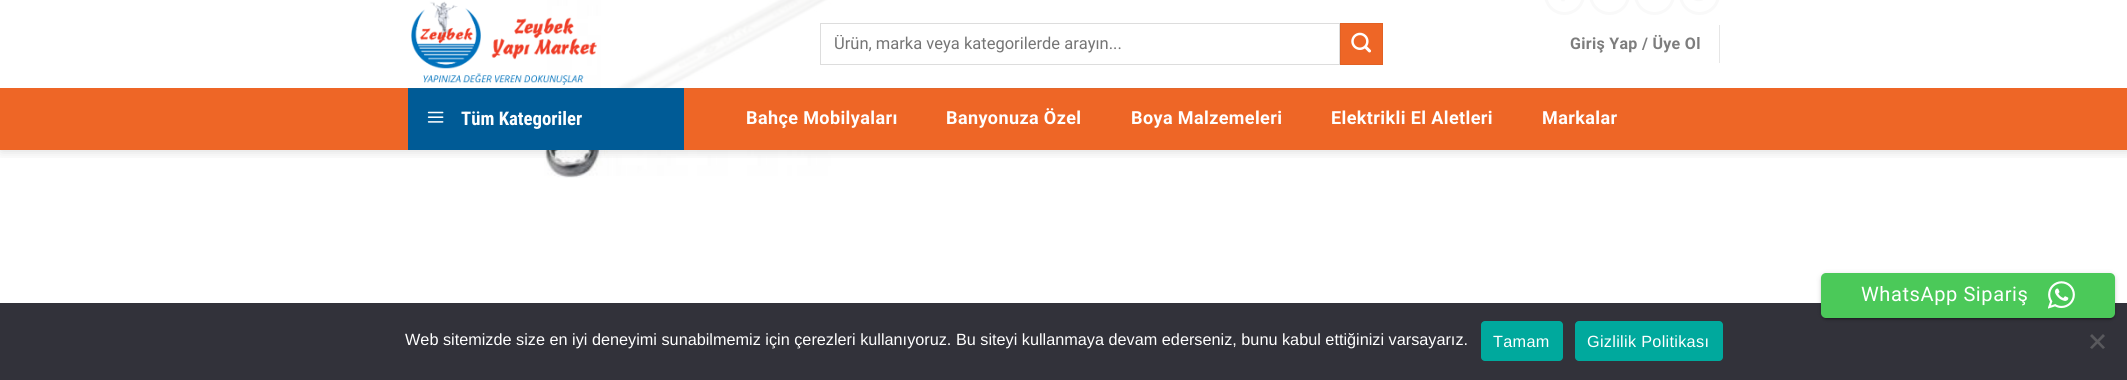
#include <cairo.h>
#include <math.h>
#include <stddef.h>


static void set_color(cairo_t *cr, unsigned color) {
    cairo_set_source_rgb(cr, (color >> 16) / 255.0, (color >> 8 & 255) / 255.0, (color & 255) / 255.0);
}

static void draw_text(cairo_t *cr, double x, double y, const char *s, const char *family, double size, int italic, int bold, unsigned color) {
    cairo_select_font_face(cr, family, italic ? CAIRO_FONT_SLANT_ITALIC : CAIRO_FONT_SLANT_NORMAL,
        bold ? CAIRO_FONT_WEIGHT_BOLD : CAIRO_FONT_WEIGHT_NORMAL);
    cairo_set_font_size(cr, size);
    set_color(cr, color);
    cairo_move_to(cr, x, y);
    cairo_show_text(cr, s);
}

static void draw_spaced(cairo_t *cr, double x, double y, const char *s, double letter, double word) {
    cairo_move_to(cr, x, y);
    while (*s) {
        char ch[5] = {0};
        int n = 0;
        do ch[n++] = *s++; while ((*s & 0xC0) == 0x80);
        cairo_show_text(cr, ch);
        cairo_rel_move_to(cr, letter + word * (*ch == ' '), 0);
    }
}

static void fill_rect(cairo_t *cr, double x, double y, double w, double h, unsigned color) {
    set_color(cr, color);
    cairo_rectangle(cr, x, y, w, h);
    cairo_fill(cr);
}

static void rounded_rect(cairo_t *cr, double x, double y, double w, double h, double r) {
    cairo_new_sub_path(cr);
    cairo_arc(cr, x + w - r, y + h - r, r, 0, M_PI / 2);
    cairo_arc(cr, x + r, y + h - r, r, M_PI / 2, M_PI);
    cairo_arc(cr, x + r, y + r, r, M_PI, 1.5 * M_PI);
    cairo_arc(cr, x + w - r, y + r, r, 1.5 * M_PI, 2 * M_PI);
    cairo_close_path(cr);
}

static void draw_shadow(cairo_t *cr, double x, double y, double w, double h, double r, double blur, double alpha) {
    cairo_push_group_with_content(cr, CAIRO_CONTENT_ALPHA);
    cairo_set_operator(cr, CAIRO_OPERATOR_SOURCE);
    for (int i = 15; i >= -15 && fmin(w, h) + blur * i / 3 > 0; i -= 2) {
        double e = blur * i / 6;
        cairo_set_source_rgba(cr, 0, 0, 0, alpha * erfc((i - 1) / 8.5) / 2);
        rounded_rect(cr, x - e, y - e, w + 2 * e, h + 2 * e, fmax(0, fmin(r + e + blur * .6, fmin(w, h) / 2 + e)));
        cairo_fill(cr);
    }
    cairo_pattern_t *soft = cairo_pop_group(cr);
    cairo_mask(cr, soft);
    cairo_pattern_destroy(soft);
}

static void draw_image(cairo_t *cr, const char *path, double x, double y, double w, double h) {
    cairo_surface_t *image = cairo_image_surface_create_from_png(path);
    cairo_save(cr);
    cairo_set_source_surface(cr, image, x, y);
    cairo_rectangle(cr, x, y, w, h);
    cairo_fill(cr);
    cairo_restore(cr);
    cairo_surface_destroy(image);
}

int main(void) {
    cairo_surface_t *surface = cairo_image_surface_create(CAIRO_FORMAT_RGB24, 2127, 380);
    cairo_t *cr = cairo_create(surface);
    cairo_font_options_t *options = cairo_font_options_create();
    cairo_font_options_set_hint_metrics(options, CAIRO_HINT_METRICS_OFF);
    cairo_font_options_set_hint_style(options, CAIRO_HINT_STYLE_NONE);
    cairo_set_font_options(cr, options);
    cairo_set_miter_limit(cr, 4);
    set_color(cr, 0xFFFFFF);
    cairo_paint(cr);
    rounded_rect(cr, 1545.5, -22.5, 38, 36, 19);
    set_color(cr, 0xC0C0C0);
    cairo_set_line_width(cr, 3);
    cairo_stroke(cr);
    draw_image(cr, "assets/img1.png", 1561, 0, 4, 2);
    rounded_rect(cr, 1590.5, -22.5, 38, 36, 19);
    cairo_stroke(cr);
    rounded_rect(cr, 1635.5, -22.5, 38, 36, 19);
    cairo_stroke(cr);
    rounded_rect(cr, 1680.5, -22.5, 38, 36, 19);
    cairo_stroke(cr);
    draw_image(cr, "assets/img2.png", 1694, 0, 9, 2);
    draw_image(cr, "assets/img3.png", 544, 0, 290, 178);
    cairo_save(cr);
    cairo_rectangle(cr, 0, 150, 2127, 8);
    cairo_clip(cr);
    set_color(cr, 0x000000);
    draw_shadow(cr, 1, 1, 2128, 150, 0, 6, 0.15);
    cairo_restore(cr);
    cairo_set_source_rgba(cr, 1, 1, 1, 0.9);
    cairo_rectangle(cr, 601, 0, 1119, 88);
    cairo_fill(cr);
    draw_image(cr, "assets/img4.png", 411, 1, 186, 84);
    cairo_rectangle(cr, 820.5, 23.5, 519, 41);
    set_color(cr, 0xDDDDDD);
    cairo_set_line_width(cr, 1);
    cairo_stroke(cr);
    cairo_save(cr);
    cairo_rectangle(cr, 834, 35, 487, 19);
    cairo_clip(cr);
    draw_text(cr, 834, 49, "Ürün, marka veya kategorilerde arayın...", "Roboto", 16.5, 0, 0, 0x757575);
    cairo_restore(cr);
    set_color(cr, 0xEE6626);
    cairo_rectangle(cr, 1340.5, 23.5, 42, 41);
    cairo_fill_preserve(cr);
    set_color(cr, 0xE26124);
    cairo_stroke(cr);
    draw_image(cr, "assets/img5.png", 1351, 32, 20, 21);
    cairo_select_font_face(cr, "Roboto", CAIRO_FONT_SLANT_NORMAL, CAIRO_FONT_WEIGHT_BOLD);
    cairo_set_font_size(cr, 16);
    set_color(cr, 0x7D7D7D);
    draw_spaced(cr, 1570, 49, "Giriş Yap / Üye Ol", 0.3, 0);
    fill_rect(cr, 1719, 25, 1, 38, 0xE6E6E6);
    fill_rect(cr, 0, 88, 2127, 62, 0xEE6626);
    fill_rect(cr, 408, 88, 276, 62, 0x005B96);
    cairo_set_source_rgba(cr, 0.467, 0.467, 0.467, 0.1);
    cairo_rectangle(cr, 408, 88, 1312, 1);
    cairo_fill(cr);
    draw_image(cr, "assets/img6.png", 427, 111, 17, 12);
    draw_text(cr, 461, 125, "Tüm Kategoriler", "Roboto Condensed", 18.75, 0, 1, 0xFFFFFF);
    cairo_select_font_face(cr, "Roboto", CAIRO_FONT_SLANT_NORMAL, CAIRO_FONT_WEIGHT_BOLD);
    cairo_set_font_size(cr, 18);
    draw_spaced(cr, 746, 124, "Bahçe Mobilyaları", 0.4, 0);
    draw_spaced(cr, 946, 124, "Banyonuza Özel", 0.4, 0);
    draw_spaced(cr, 1131, 124, "Boya Malzemeleri", 0.4, 0);
    draw_spaced(cr, 1331, 124, "Elektrikli El Aletleri", 0.4, 0);
    draw_spaced(cr, 1542, 124, "Markalar", 0.4, 0);
    fill_rect(cr, 0, 303, 2127, 77, 0x32323A);
    set_color(cr, 0x000000);
    draw_shadow(cr, 1824, 279, 289, 40, 2.5, 0.5, 0.2);
    draw_shadow(cr, 1821, 274, 294, 45, 5, 3, 0.12);
    draw_shadow(cr, 1821, 275, 294, 45, 5, 1, 0.14);
    set_color(cr, 0x4BC959);
    rounded_rect(cr, 1821, 273, 294, 45, 5);
    cairo_fill(cr);
    cairo_select_font_face(cr, "Roboto", CAIRO_FONT_SLANT_NORMAL, CAIRO_FONT_WEIGHT_NORMAL);
    cairo_set_font_size(cr, 20);
    set_color(cr, 0xFFFFFF);
    draw_spaced(cr, 1861, 301, "WhatsApp Sipariş", 0.6, 0);
    draw_image(cr, "assets/img7.png", 2048, 281, 27, 28);
    draw_text(cr, 405, 345, "Web sitemizde size en iyi deneyimi sunabilmemiz için çerezleri kullanıyoruz. Bu siteyi kullanmaya devam ederseniz, bunu kabul ettiğinizi varsayarız.", "Liberation Sans", 16.25, 0, 0, 0xFFFFFF);
    set_color(cr, 0x00A99D);
    rounded_rect(cr, 1481, 321, 82, 40, 4);
    cairo_fill(cr);
    set_color(cr, 0xFFFFFF);
    draw_spaced(cr, 1493, 347, "Tamam", 0.3, 0);
    set_color(cr, 0x00A99D);
    rounded_rect(cr, 1575, 321, 148, 40, 4);
    cairo_fill(cr);
    set_color(cr, 0xFFFFFF);
    draw_spaced(cr, 1587, 347, "Gizlilik Politikası", 0.3, 0);
    set_color(cr, 0x59595D);
    cairo_new_path(cr);
    cairo_move_to(cr, 2103, 334);
    cairo_line_to(cr, 2105, 336);
    cairo_line_to(cr, 2092, 349);
    cairo_line_to(cr, 2090, 347.5);
    cairo_close_path(cr);
    cairo_fill(cr);
    cairo_new_path(cr);
    cairo_move_to(cr, 2090, 336);
    cairo_line_to(cr, 2092, 334);
    cairo_line_to(cr, 2105, 347.5);
    cairo_line_to(cr, 2103, 349);
    cairo_close_path(cr);
    cairo_fill(cr);
    cairo_surface_write_to_png(surface, "output.png");
    cairo_font_options_destroy(options);
    cairo_destroy(cr);
    cairo_surface_destroy(surface);
    return 0;
}
